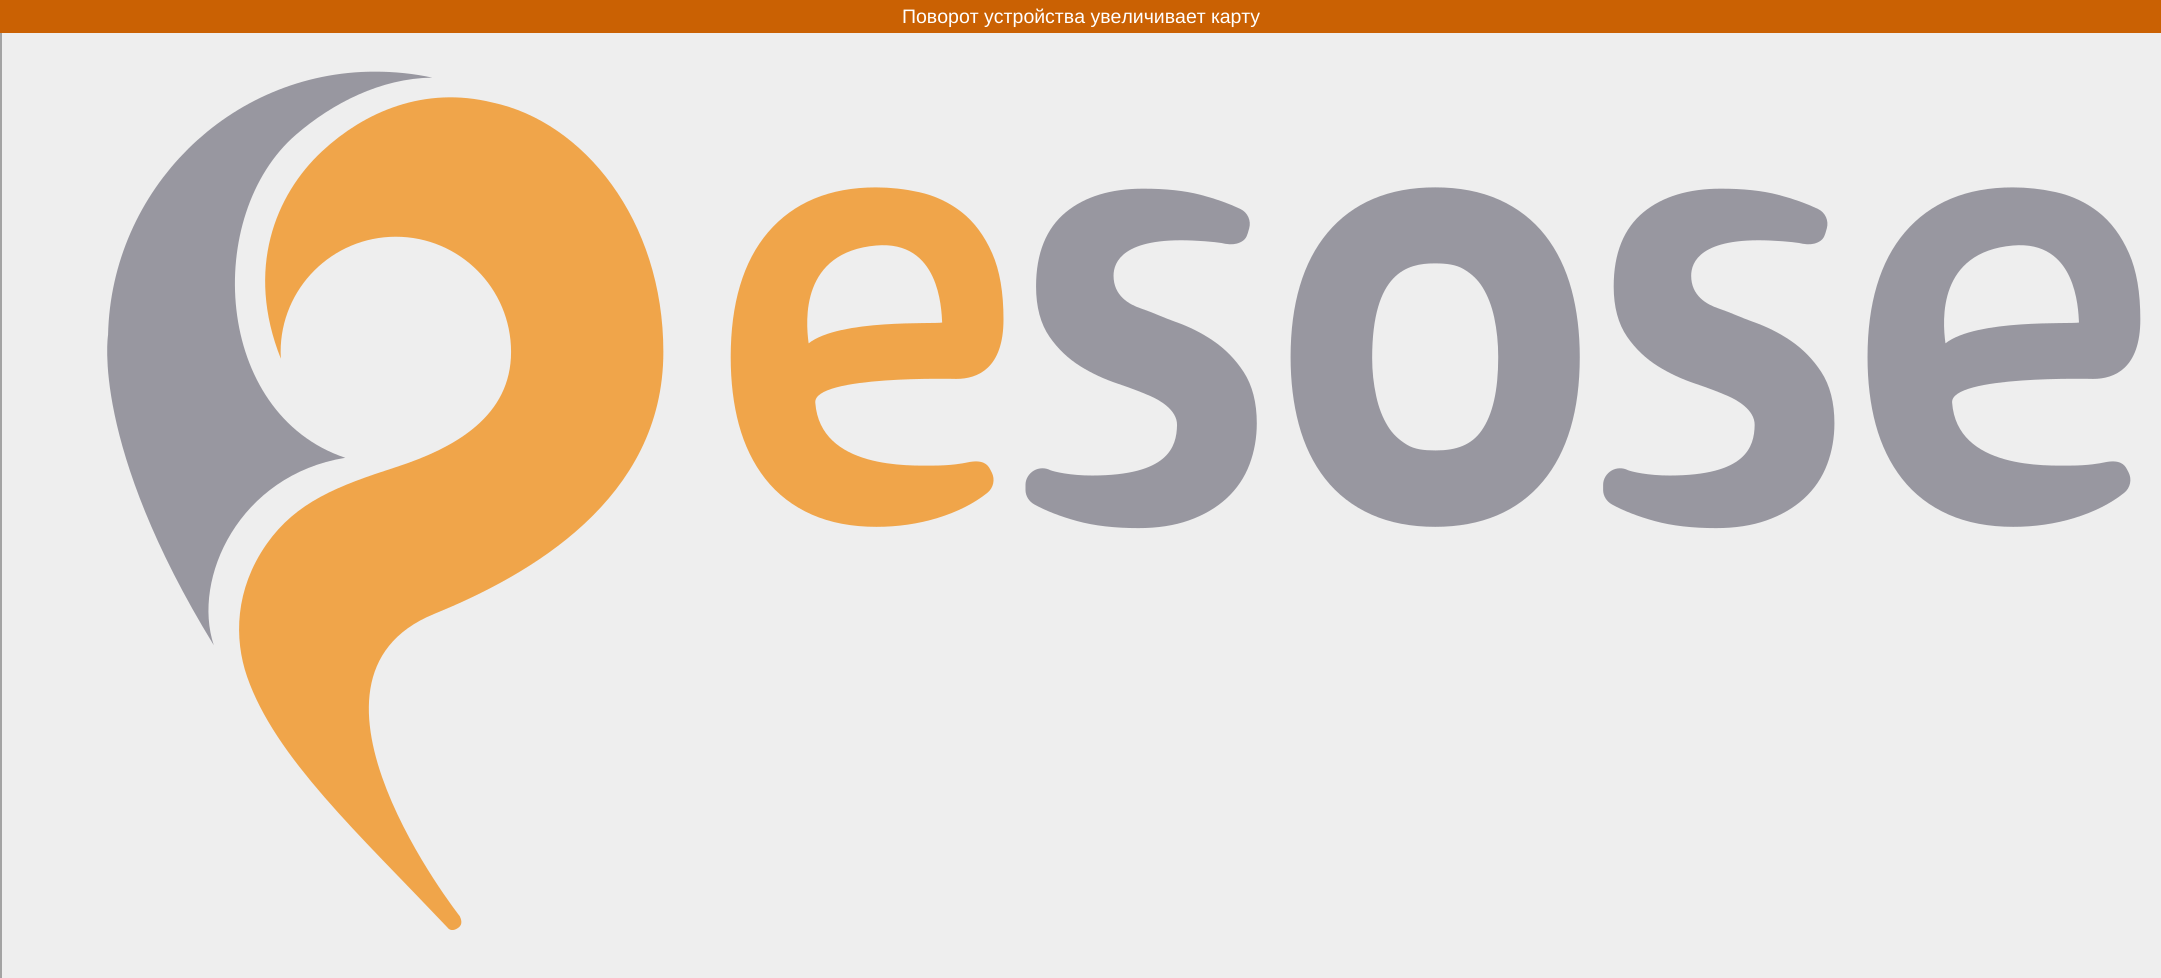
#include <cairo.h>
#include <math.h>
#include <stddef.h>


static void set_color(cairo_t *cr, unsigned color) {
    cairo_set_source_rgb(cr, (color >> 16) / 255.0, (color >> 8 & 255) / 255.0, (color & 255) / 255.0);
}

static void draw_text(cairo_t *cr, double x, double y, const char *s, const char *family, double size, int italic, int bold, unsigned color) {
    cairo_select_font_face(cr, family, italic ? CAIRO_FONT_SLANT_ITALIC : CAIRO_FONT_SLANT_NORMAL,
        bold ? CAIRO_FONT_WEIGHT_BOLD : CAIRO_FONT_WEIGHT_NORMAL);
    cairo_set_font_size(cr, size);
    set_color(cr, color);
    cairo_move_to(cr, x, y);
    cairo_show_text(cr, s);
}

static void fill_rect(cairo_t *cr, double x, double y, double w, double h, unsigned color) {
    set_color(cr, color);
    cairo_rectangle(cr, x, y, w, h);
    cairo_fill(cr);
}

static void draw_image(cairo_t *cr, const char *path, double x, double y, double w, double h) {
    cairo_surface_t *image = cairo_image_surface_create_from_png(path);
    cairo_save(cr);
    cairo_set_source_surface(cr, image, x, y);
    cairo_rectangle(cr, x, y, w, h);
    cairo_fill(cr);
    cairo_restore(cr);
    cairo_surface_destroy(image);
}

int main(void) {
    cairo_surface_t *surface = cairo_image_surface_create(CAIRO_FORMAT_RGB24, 2161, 978);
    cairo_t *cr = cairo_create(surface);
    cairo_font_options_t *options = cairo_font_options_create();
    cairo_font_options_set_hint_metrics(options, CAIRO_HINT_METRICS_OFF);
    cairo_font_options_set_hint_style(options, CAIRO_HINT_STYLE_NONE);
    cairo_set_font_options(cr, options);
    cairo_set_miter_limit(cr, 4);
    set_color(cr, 0xEEEEEE);
    cairo_paint(cr);
    draw_image(cr, "assets/img1.png", 107, 71, 2034, 859);
    cairo_rectangle(cr, 1, 3, 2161, 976);
    set_color(cr, 0xA3A3A3);
    cairo_stroke(cr);
    fill_rect(cr, 0, 0, 2161, 33, 0xCA6103);
    draw_text(cr, 902, 23, "Поворот устройства увеличивает карту", "Liberation Sans", 19.5, 0, 0, 0xFFFFFF);
    cairo_surface_write_to_png(surface, "output.png");
    cairo_font_options_destroy(options);
    cairo_destroy(cr);
    cairo_surface_destroy(surface);
    return 0;
}
